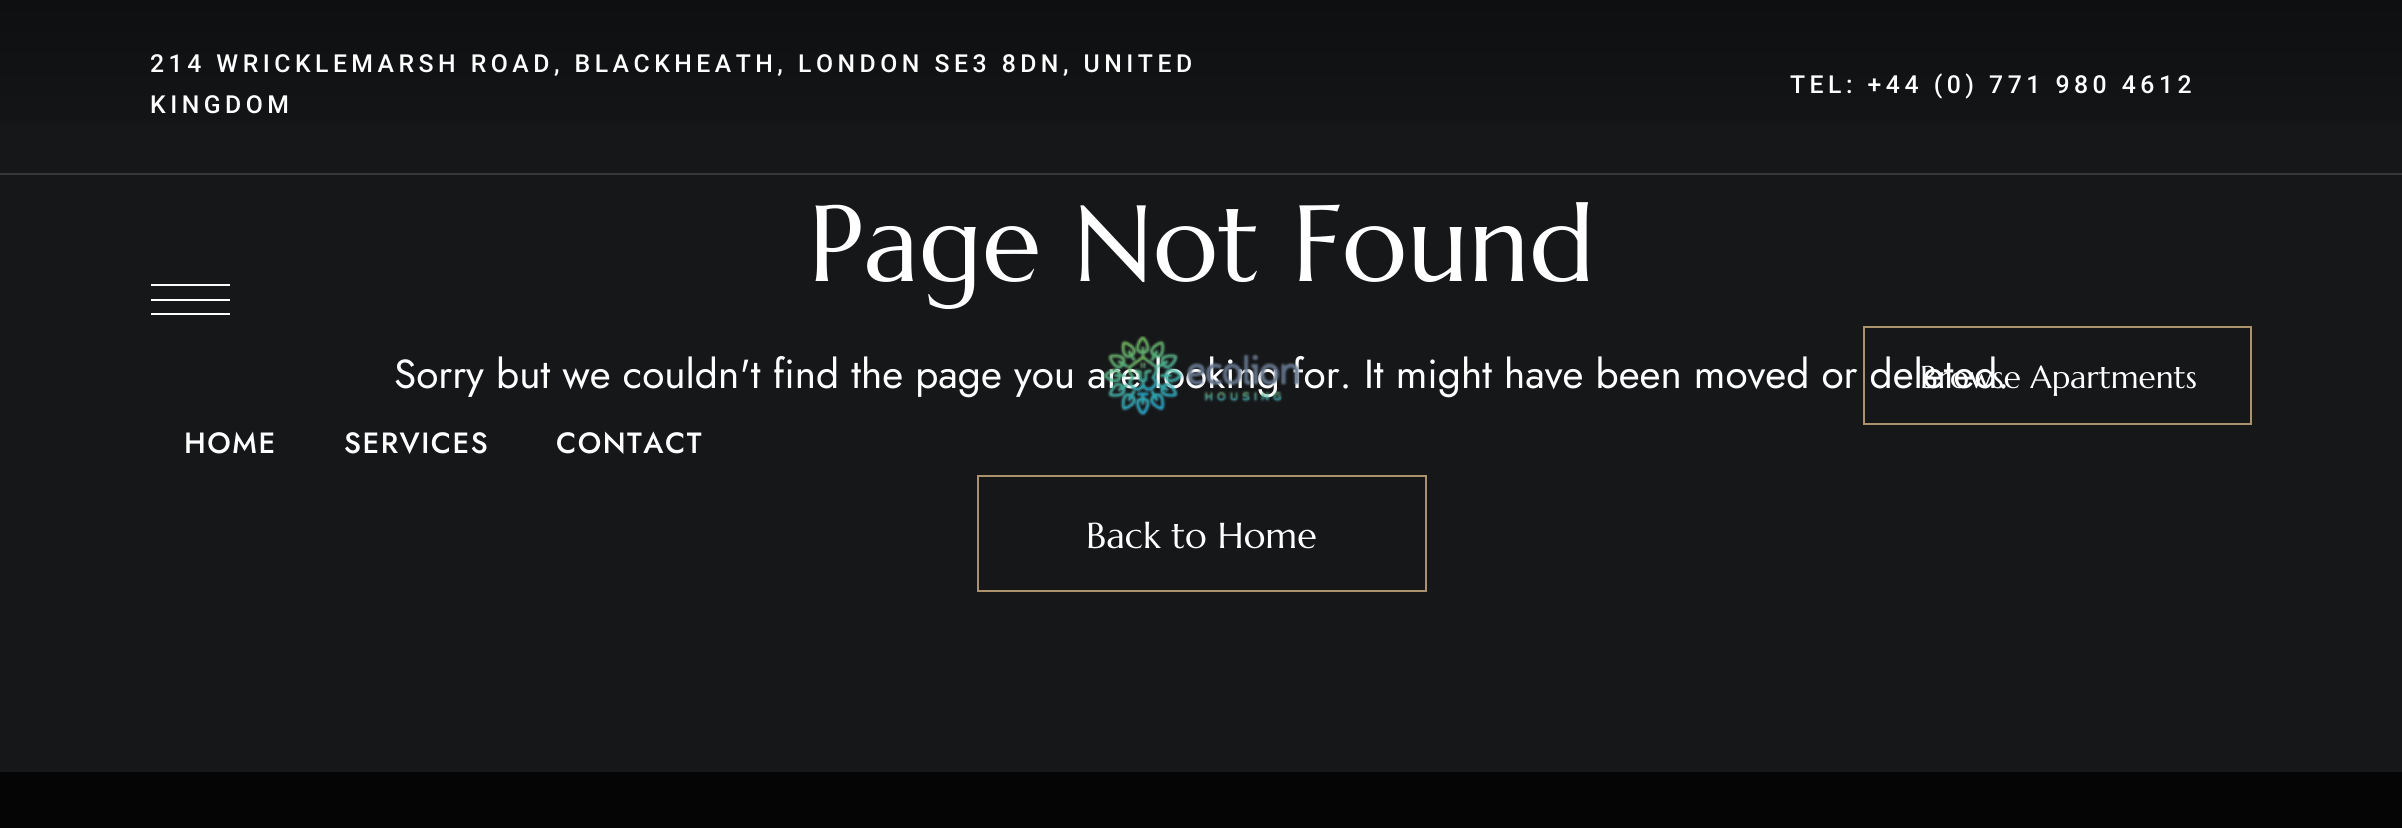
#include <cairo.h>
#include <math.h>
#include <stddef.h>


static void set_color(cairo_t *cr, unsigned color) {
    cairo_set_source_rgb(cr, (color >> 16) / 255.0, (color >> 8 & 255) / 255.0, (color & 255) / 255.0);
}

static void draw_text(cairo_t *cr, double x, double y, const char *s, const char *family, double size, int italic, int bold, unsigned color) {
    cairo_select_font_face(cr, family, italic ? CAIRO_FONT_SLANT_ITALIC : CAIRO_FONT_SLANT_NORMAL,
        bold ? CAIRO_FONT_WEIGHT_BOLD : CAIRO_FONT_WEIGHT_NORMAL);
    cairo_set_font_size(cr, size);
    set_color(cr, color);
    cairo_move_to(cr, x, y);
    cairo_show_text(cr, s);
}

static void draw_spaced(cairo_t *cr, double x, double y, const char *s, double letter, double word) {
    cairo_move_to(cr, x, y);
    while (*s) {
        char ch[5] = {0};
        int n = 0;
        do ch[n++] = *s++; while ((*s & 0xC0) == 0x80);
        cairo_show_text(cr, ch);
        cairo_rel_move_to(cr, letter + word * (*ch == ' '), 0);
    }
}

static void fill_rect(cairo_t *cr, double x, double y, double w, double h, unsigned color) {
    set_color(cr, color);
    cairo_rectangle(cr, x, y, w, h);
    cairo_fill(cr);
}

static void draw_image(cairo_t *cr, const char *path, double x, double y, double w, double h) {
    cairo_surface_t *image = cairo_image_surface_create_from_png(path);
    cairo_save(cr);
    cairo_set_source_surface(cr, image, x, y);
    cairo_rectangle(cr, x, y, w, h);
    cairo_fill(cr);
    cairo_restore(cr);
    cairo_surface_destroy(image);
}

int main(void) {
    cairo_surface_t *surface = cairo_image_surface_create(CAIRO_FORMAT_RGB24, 2402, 828);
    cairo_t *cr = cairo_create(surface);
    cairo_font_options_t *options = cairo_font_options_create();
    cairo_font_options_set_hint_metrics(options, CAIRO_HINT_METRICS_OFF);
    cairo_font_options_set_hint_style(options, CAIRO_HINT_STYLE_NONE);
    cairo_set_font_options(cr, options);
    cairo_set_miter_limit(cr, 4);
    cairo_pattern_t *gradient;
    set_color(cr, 0x151719);
    cairo_paint(cr);
    fill_rect(cr, 0, 173, 2402, 2, 0x363739);
    gradient = cairo_pattern_create_linear(1202, 0, 1202, 173);
    cairo_pattern_add_color_stop_rgba(gradient, 0, 0.055, 0.059, 0.063, 1);
    cairo_pattern_add_color_stop_rgba(gradient, 1, 0.082, 0.09, 0.098, 1);
    cairo_set_source(cr, gradient);
    cairo_pattern_destroy(gradient);
    cairo_rectangle(cr, 0, 0, 2402, 125);
    cairo_fill(cr);
    cairo_select_font_face(cr, "Roboto Medium", CAIRO_FONT_SLANT_NORMAL, CAIRO_FONT_WEIGHT_NORMAL);
    cairo_set_font_size(cr, 24.75);
    set_color(cr, 0xFFFFFF);
    draw_spaced(cr, 150, 72, "214 WRICKLEMARSH ROAD, BLACKHEATH, LONDON SE3 8DN, UNITED", 4.5, 0);
    draw_spaced(cr, 150, 113, "KINGDOM", 4.5, 0);
    draw_spaced(cr, 1790, 93, "TEL: +44 (0) 771 980 4612", 4.5, 0);
    draw_text(cr, 394, 388, "Sorry but we couldn't find the page you are looking for. It might have been moved or deleted.", "Jost", 40.5, 0, 0, 0xFFFFFF);
    draw_image(cr, "assets/img1.png", 1103, 336, 197, 80);
    cairo_rectangle(cr, 1864, 327, 387, 97);
    set_color(cr, 0xAB916C);
    cairo_stroke(cr);
    draw_text(cr, 1920, 388, "Browse Apartments", "Marcellus", 31.5, 0, 0, 0xFFFFFF);
    fill_rect(cr, 151, 284, 79, 2, 0xFFFFFF);
    fill_rect(cr, 151, 313, 79, 2, 0xFFFFFF);
    fill_rect(cr, 151, 299, 79, 2, 0xFFFFFF);
    cairo_select_font_face(cr, "Jost Medium", CAIRO_FONT_SLANT_NORMAL, CAIRO_FONT_WEIGHT_NORMAL);
    cairo_set_font_size(cr, 29.25);
    draw_spaced(cr, 184, 453, "HOME", 1.5, 0);
    draw_spaced(cr, 344, 453, "SERVICES", 1.5, 0);
    draw_spaced(cr, 556, 453, "CONTACT", 1.5, 0);
    draw_text(cr, 808, 281, "Page Not Found", "Marcellus", 108, 0, 0, 0xFFFFFF);
    cairo_rectangle(cr, 978, 476, 448, 115);
    set_color(cr, 0xAB916C);
    cairo_stroke(cr);
    draw_text(cr, 1086, 548, "Back to Home", "Marcellus", 36, 0, 0, 0xFFFFFF);
    fill_rect(cr, 0, 772, 2402, 56, 0x050505);
    cairo_surface_write_to_png(surface, "output.png");
    cairo_font_options_destroy(options);
    cairo_destroy(cr);
    cairo_surface_destroy(surface);
    return 0;
}
